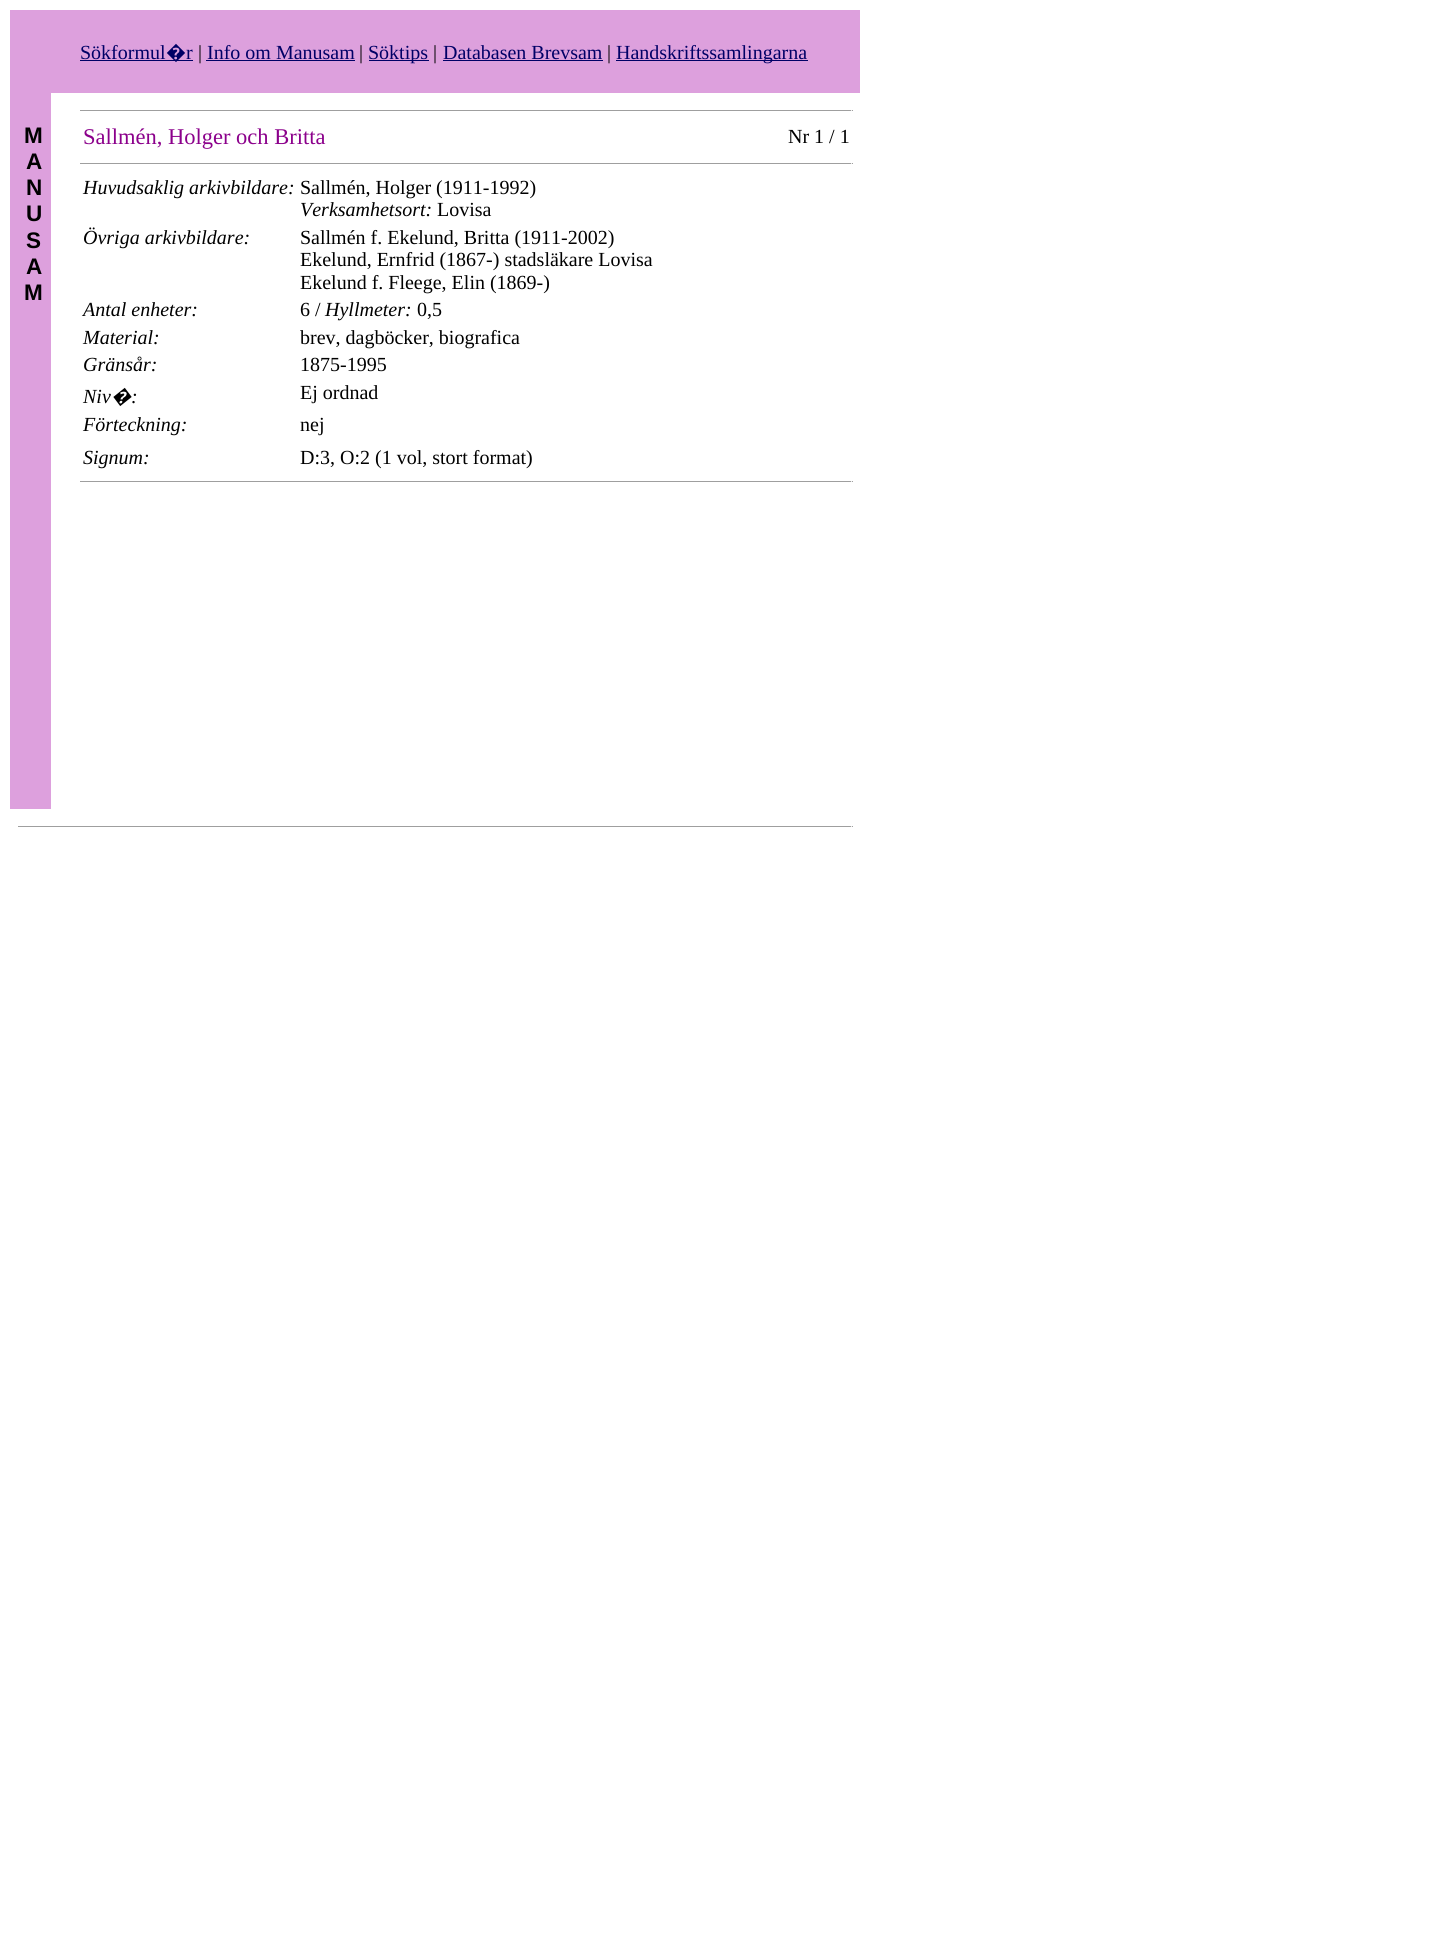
#include <cairo.h>
#include <math.h>
#include <stddef.h>


static void set_color(cairo_t *cr, unsigned color) {
    cairo_set_source_rgb(cr, (color >> 16) / 255.0, (color >> 8 & 255) / 255.0, (color & 255) / 255.0);
}

static void draw_text(cairo_t *cr, double x, double y, const char *s, const char *family, double size, int italic, int bold, unsigned color) {
    cairo_select_font_face(cr, family, italic ? CAIRO_FONT_SLANT_ITALIC : CAIRO_FONT_SLANT_NORMAL,
        bold ? CAIRO_FONT_WEIGHT_BOLD : CAIRO_FONT_WEIGHT_NORMAL);
    cairo_set_font_size(cr, size);
    set_color(cr, color);
    cairo_move_to(cr, x, y);
    cairo_show_text(cr, s);
}

static void fill_rect(cairo_t *cr, double x, double y, double w, double h, unsigned color) {
    set_color(cr, color);
    cairo_rectangle(cr, x, y, w, h);
    cairo_fill(cr);
}

int main(void) {
    cairo_surface_t *surface = cairo_image_surface_create(CAIRO_FORMAT_RGB24, 1429, 1955);
    cairo_t *cr = cairo_create(surface);
    cairo_font_options_t *options = cairo_font_options_create();
    cairo_font_options_set_hint_metrics(options, CAIRO_HINT_METRICS_OFF);
    cairo_font_options_set_hint_style(options, CAIRO_HINT_STYLE_NONE);
    cairo_set_font_options(cr, options);
    cairo_set_miter_limit(cr, 4);
    set_color(cr, 0xFFFFFF);
    cairo_paint(cr);
    fill_rect(cr, 10, 10, 850, 83, 0xDDA0DD);
    draw_text(cr, 80, 59, "Sökformul", "Liberation Serif", 20, 0, 0, 0x000066);
    fill_rect(cr, 80, 60, 113, 1, 0x000066);
    draw_text(cr, 166, 59, "�", "Noto Sans", 20, 0, 0, 0x000066);
    draw_text(cr, 186, 59, "r", "Liberation Serif", 20, 0, 0, 0x000066);
    draw_text(cr, 198, 59, "|", "Liberation Serif", 20, 0, 0, 0x000000);
    draw_text(cr, 207, 59, "Info om Manusam", "Liberation Serif", 20, 0, 0, 0x000066);
    fill_rect(cr, 206, 60, 149, 1, 0x000066);
    draw_text(cr, 359, 59, "|", "Liberation Serif", 20, 0, 0, 0x000000);
    fill_rect(cr, 369, 60, 60, 1, 0x000066);
    draw_text(cr, 368, 59, "Söktips", "Liberation Serif", 20, 0, 0, 0x000066);
    draw_text(cr, 433, 59, "|", "Liberation Serif", 20, 0, 0, 0x000000);
    draw_text(cr, 443, 59, "Databasen Brevsam", "Liberation Serif", 20, 0, 0, 0x000066);
    fill_rect(cr, 443, 60, 160, 1, 0x000066);
    draw_text(cr, 607, 59, "|", "Liberation Serif", 20, 0, 0, 0x000000);
    fill_rect(cr, 616, 60, 192, 1, 0x000066);
    draw_text(cr, 616, 59, "Handskriftssamlingarna", "Liberation Serif", 20, 0, 0, 0x000066);
    fill_rect(cr, 10, 93, 41, 716, 0xDDA0DD);
    draw_text(cr, 24, 143, "M", "Liberation Sans", 22.5, 0, 1, 0x000000);
    draw_text(cr, 26, 169, "A", "Liberation Sans", 22.5, 0, 1, 0x000000);
    draw_text(cr, 26, 195, "N", "Liberation Sans", 22.5, 0, 1, 0x000000);
    draw_text(cr, 26, 221, "U", "Liberation Sans", 22.5, 0, 1, 0x000000);
    draw_text(cr, 26, 248, "S", "Liberation Sans", 22.5, 0, 1, 0x000000);
    draw_text(cr, 26, 274, "A", "Liberation Sans", 22.5, 0, 1, 0x000000);
    draw_text(cr, 24, 300, "M", "Liberation Sans", 22.5, 0, 1, 0x000000);
    fill_rect(cr, 80, 110, 773, 1, 0x9F9F9F);
    fill_rect(cr, 851, 110, 1, 1, 0xEEEEEE);
    draw_text(cr, 83, 144, "Sallmén, Holger och Britta", "Liberation Serif", 22.5, 0, 0, 0x8B008B);
    draw_text(cr, 788, 143, "Nr 1 / 1", "Liberation Serif", 20, 0, 0, 0x000000);
    fill_rect(cr, 80, 163, 773, 1, 0x9F9F9F);
    fill_rect(cr, 851, 163, 1, 1, 0xEEEEEE);
    draw_text(cr, 83, 194, "Huvudsaklig arkivbildare:", "Liberation Serif", 20, 1, 0, 0x000000);
    draw_text(cr, 300, 194, "Sallmén, Holger (1911-1992)", "Liberation Serif", 20, 0, 0, 0x000000);
    draw_text(cr, 300, 216, "Verksamhetsort:", "Liberation Serif", 20, 1, 0, 0x000000);
    draw_text(cr, 437, 216, "Lovisa", "Liberation Serif", 20, 0, 0, 0x000000);
    draw_text(cr, 83, 244, "Övriga arkivbildare:", "Liberation Serif", 20, 1, 0, 0x000000);
    draw_text(cr, 300, 244, "Sallmén f. Ekelund, Britta (1911-2002)", "Liberation Serif", 20, 0, 0, 0x000000);
    draw_text(cr, 300, 266, "Ekelund, Ernfrid (1867-) stadsläkare Lovisa", "Liberation Serif", 20, 0, 0, 0x000000);
    draw_text(cr, 300, 289, "Ekelund f. Fleege, Elin (1869-)", "Liberation Serif", 20, 0, 0, 0x000000);
    draw_text(cr, 83, 316, "Antal enheter:", "Liberation Serif", 20, 1, 0, 0x000000);
    draw_text(cr, 300, 316, "6 /", "Liberation Serif", 20, 0, 0, 0x000000);
    draw_text(cr, 325, 316, "Hyllmeter:", "Liberation Serif", 20, 1, 0, 0x000000);
    draw_text(cr, 417, 316, "0,5", "Liberation Serif", 20, 0, 0, 0x000000);
    draw_text(cr, 83, 344, "Material:", "Liberation Serif", 20, 1, 0, 0x000000);
    draw_text(cr, 300, 344, "brev, dagböcker, biografica", "Liberation Serif", 20, 0, 0, 0x000000);
    draw_text(cr, 83, 371, "Gränsår:", "Liberation Serif", 20, 1, 0, 0x000000);
    draw_text(cr, 300, 371, "1875-1995", "Liberation Serif", 20, 0, 0, 0x000000);
    draw_text(cr, 83, 403, "Niv", "Liberation Serif", 20, 1, 0, 0x000000);
    draw_text(cr, 111, 403, "�", "Noto Sans", 20, 1, 0, 0x000000);
    draw_text(cr, 131, 403, ":", "Liberation Serif", 20, 1, 0, 0x000000);
    draw_text(cr, 300, 399, "Ej ordnad", "Liberation Serif", 20, 0, 0, 0x000000);
    draw_text(cr, 83, 431, "Förteckning:", "Liberation Serif", 20, 1, 0, 0x000000);
    draw_text(cr, 300, 431, "nej", "Liberation Serif", 20, 0, 0, 0x000000);
    draw_text(cr, 83, 464, "Signum:", "Liberation Serif", 20, 1, 0, 0x000000);
    draw_text(cr, 300, 464, "D:3, O:2 (1 vol, stort format)", "Liberation Serif", 20, 0, 0, 0x000000);
    fill_rect(cr, 80, 481, 773, 1, 0x9F9F9F);
    fill_rect(cr, 851, 481, 1, 1, 0xEEEEEE);
    fill_rect(cr, 18, 826, 835, 1, 0x9F9F9F);
    fill_rect(cr, 851, 826, 1, 1, 0xEEEEEE);
    cairo_surface_write_to_png(surface, "output.png");
    cairo_font_options_destroy(options);
    cairo_destroy(cr);
    cairo_surface_destroy(surface);
    return 0;
}
